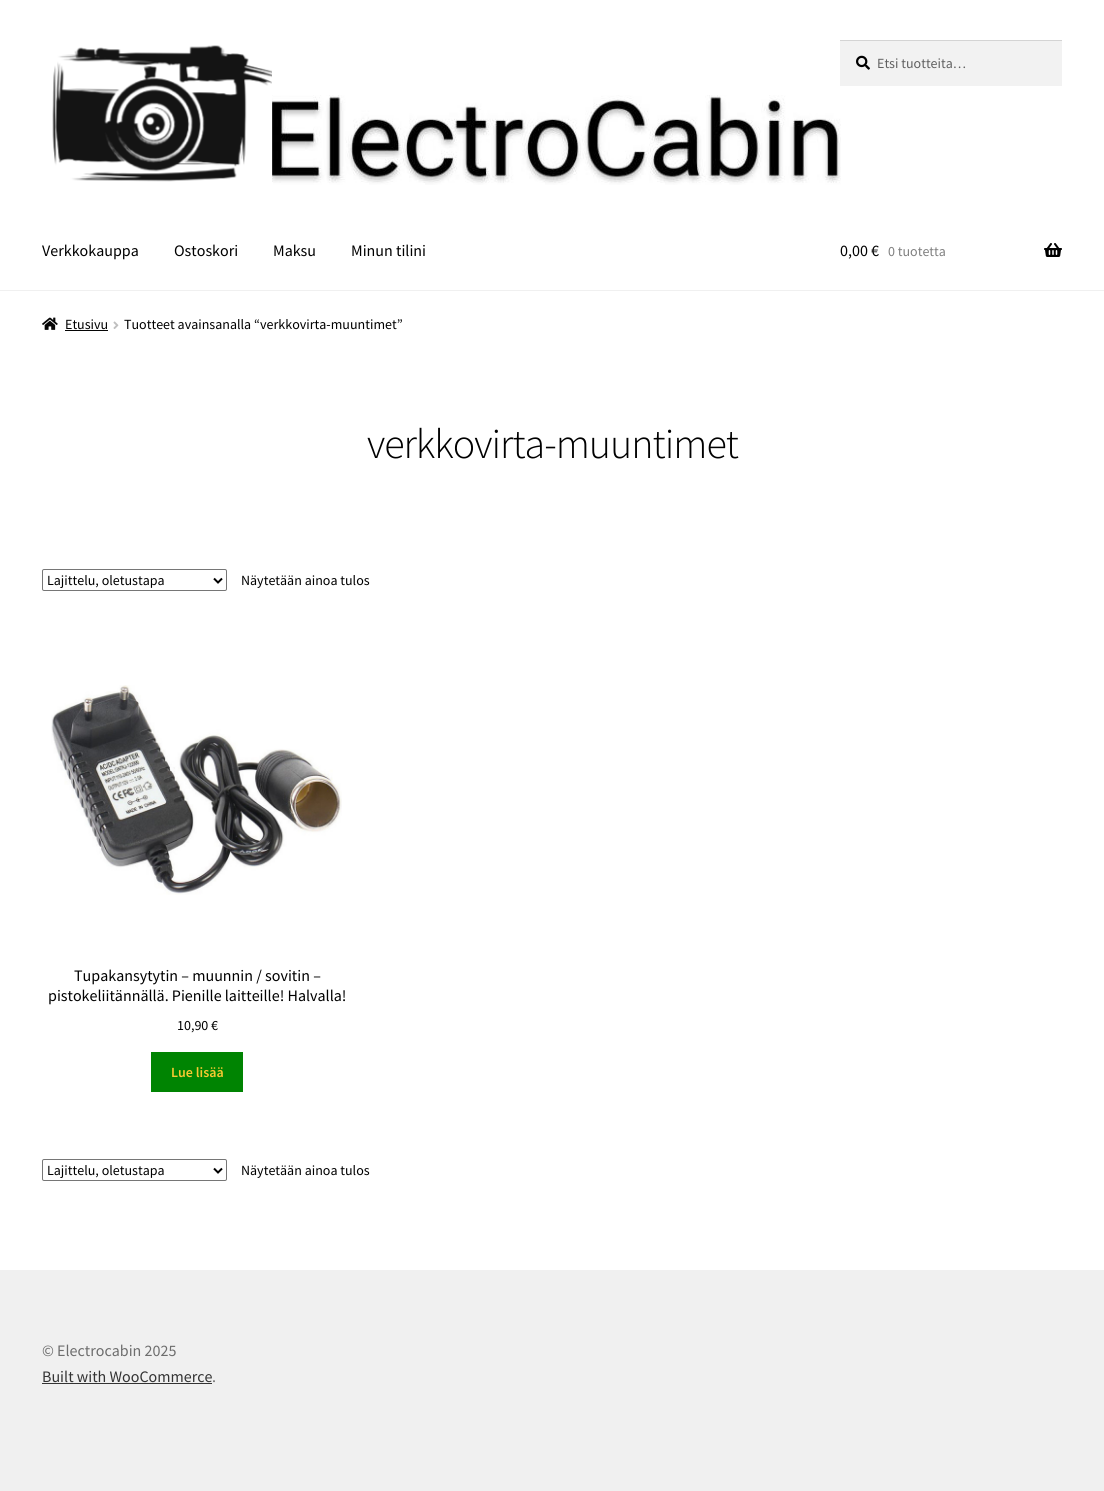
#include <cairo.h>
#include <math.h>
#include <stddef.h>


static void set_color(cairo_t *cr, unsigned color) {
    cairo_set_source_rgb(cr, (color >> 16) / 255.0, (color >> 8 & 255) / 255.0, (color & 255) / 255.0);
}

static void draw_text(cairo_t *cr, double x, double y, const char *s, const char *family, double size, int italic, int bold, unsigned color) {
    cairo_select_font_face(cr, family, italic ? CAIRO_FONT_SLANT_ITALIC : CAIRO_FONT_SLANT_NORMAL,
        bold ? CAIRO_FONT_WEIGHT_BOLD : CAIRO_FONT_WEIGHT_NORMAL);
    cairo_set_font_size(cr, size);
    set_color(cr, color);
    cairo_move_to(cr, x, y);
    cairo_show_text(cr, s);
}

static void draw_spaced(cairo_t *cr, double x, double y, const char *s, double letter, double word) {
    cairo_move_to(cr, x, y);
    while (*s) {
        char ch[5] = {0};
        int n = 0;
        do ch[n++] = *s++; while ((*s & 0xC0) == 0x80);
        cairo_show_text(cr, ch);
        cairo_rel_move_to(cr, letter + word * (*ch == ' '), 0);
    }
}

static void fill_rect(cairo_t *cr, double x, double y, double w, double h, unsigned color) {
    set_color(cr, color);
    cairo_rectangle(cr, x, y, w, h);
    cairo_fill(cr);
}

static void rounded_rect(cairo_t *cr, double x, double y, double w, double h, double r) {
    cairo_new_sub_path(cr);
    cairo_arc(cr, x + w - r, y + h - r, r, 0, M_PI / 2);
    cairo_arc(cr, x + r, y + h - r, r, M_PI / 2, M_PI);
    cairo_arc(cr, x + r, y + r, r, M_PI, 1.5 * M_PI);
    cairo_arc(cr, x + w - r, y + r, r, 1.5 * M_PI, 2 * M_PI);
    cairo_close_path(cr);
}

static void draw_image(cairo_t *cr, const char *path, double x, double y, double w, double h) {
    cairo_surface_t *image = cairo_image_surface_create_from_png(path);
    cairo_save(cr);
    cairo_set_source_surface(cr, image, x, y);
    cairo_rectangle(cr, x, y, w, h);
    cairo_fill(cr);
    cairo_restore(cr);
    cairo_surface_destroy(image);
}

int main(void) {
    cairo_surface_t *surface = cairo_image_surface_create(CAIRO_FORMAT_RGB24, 1104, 1491);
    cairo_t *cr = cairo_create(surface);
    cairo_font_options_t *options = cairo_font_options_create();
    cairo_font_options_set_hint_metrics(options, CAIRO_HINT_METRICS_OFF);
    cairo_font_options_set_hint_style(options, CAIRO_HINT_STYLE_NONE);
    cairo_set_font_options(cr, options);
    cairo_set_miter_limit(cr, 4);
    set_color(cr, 0xFFFFFF);
    cairo_paint(cr);
    draw_image(cr, "assets/img1.png", 265, 95, 576, 90);
    fill_rect(cr, 0, 290, 1104, 1, 0xF0F0F0);
    draw_image(cr, "assets/img2.png", 52, 45, 220, 138);
    fill_rect(cr, 840, 41, 222, 45, 0xF2F2F2);
    draw_image(cr, "assets/img3.png", 856, 55, 14, 15);
    fill_rect(cr, 840, 40, 222, 1, 0xD4D4D4);
    draw_text(cr, 877, 68, "Etsi tuotteita…", "Source Sans Pro", 14, 0, 0, 0x616161);
    draw_text(cr, 42, 256, "Verkkokauppa", "Source Sans Pro", 16, 0, 0, 0x000000);
    draw_text(cr, 174, 256, "Ostoskori", "Source Sans Pro", 16, 0, 0, 0x000000);
    draw_text(cr, 273, 256, "Maksu", "Source Sans Pro", 16, 0, 0, 0x000000);
    draw_text(cr, 351, 256, "Minun tilini", "Source Sans Pro", 16, 0, 0, 0x000000);
    draw_text(cr, 840, 256, "0,00 €", "Source Sans Pro", 16, 0, 0, 0x000000);
    draw_text(cr, 888, 256, "0 tuotetta", "Source Sans Pro", 14, 0, 0, 0x808080);
    draw_image(cr, "assets/img4.png", 1044, 243, 18, 14);
    draw_image(cr, "assets/img5.png", 42, 317, 16, 13);
    draw_text(cr, 65, 329, "Etusivu", "Source Sans Pro", 14, 0, 0, 0x000000);
    fill_rect(cr, 65, 330, 43, 1, 0x050505);
    draw_image(cr, "assets/img6.png", 113, 321, 6, 8);
    draw_text(cr, 124, 329, "Tuotteet avainsanalla “verkkovirta-muuntimet”", "Source Sans Pro", 14, 0, 0, 0x000000);
    cairo_select_font_face(cr, "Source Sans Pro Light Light", CAIRO_FONT_SLANT_NORMAL, CAIRO_FONT_WEIGHT_NORMAL);
    cairo_set_font_size(cr, 42);
    draw_spaced(cr, 367, 458, "verkkovirta-muuntimet", -1, 0);
    rounded_rect(cr, 42.5, 569.5, 184, 21, 1.5);
    set_color(cr, 0x767676);
    cairo_set_line_width(cr, 1);
    cairo_stroke(cr);
    cairo_new_path(cr);
    cairo_move_to(cr, 214, 578.5);
    cairo_line_to(cr, 218, 582.5);
    cairo_line_to(cr, 222, 578.5);
    set_color(cr, 0x000000);
    cairo_set_line_width(cr, 2);
    cairo_stroke(cr);
    draw_text(cr, 47, 585, "Lajittelu, oletustapa", "Source Sans Pro", 14, 0, 0, 0x000000);
    draw_text(cr, 241, 585, "Näytetään ainoa tulos", "Source Sans Pro", 14, 0, 0, 0x000000);
    draw_image(cr, "assets/img7.png", 51, 685, 291, 210);
    draw_text(cr, 74, 981, "Tupakansytytin – muunnin / sovitin –", "Source Sans Pro", 16, 0, 0, 0x000000);
    draw_text(cr, 48, 1001, "pistokeliitännällä. Pienille laitteille! Halvalla!", "Source Sans Pro", 16, 0, 0, 0x000000);
    draw_text(cr, 177, 1030, "10,90 €", "Source Sans Pro", 14, 0, 0, 0x000000);
    fill_rect(cr, 151, 1052, 92, 40, 0x008402);
    draw_text(cr, 171, 1077, "Lue lisää", "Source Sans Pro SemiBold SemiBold", 14, 0, 0, 0xF7C931);
    rounded_rect(cr, 42.5, 1159.5, 184, 21, 1.5);
    set_color(cr, 0x767676);
    cairo_set_line_width(cr, 1);
    cairo_stroke(cr);
    cairo_new_path(cr);
    cairo_move_to(cr, 214, 1168.5);
    cairo_line_to(cr, 218, 1172.5);
    cairo_line_to(cr, 222, 1168.5);
    set_color(cr, 0x000000);
    cairo_set_line_width(cr, 2);
    cairo_stroke(cr);
    draw_text(cr, 47, 1175, "Lajittelu, oletustapa", "Source Sans Pro", 14, 0, 0, 0x000000);
    draw_text(cr, 241, 1175, "Näytetään ainoa tulos", "Source Sans Pro", 14, 0, 0, 0x000000);
    fill_rect(cr, 0, 1270, 1104, 221, 0xF0F0F0);
    draw_text(cr, 42, 1356, "© Electrocabin 2025", "Source Sans Pro", 16, 0, 0, 0x6D6D6D);
    draw_text(cr, 42, 1382, "Built with WooCommerce", "Source Sans Pro", 16, 0, 0, 0x333333);
    fill_rect(cr, 42, 1383, 170, 1, 0x333333);
    draw_text(cr, 212, 1382, ".", "Source Sans Pro", 16, 0, 0, 0x6D6D6D);
    cairo_surface_write_to_png(surface, "output.png");
    cairo_font_options_destroy(options);
    cairo_destroy(cr);
    cairo_surface_destroy(surface);
    return 0;
}
